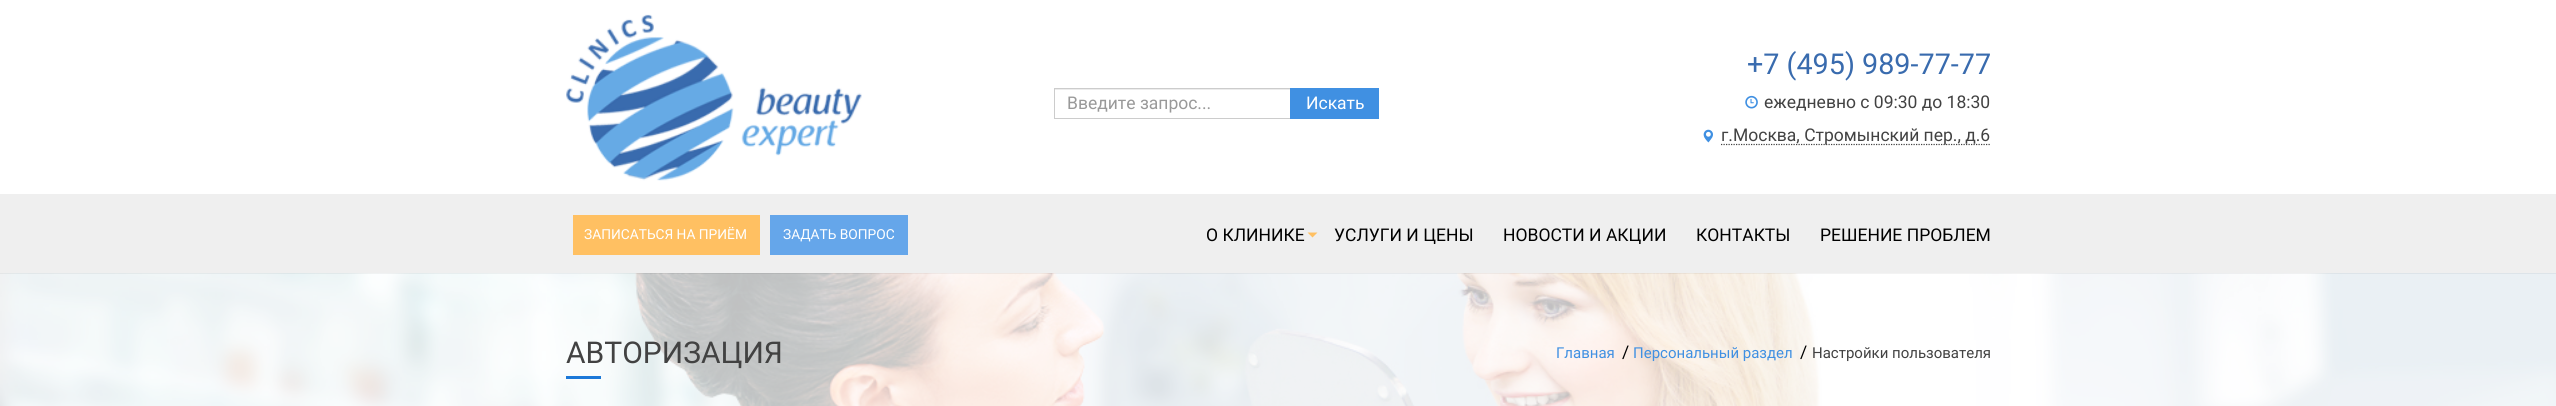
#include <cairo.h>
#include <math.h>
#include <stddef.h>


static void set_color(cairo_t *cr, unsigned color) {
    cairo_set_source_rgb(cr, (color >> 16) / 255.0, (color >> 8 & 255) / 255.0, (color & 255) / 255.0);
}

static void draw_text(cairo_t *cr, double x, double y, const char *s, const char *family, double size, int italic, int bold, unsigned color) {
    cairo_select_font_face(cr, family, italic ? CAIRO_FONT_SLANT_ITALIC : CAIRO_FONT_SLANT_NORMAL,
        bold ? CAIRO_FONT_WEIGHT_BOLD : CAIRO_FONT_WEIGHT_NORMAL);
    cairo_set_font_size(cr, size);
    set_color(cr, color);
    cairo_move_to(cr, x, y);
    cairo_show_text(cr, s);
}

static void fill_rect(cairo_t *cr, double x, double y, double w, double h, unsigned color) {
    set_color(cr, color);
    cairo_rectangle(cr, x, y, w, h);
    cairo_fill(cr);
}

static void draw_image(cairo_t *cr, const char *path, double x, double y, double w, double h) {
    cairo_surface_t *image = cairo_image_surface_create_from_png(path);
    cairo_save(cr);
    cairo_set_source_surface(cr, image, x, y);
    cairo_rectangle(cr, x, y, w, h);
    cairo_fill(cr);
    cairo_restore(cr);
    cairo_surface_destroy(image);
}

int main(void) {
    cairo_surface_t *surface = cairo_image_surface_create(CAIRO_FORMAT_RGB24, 2556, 406);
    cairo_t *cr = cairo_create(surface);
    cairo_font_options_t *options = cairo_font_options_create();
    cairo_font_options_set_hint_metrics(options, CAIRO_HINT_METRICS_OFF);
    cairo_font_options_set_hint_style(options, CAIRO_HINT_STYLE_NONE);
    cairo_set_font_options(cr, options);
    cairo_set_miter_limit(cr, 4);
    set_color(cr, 0xFFFFFF);
    cairo_paint(cr);
    draw_image(cr, "assets/img1.png", 566, 14, 296, 167);
    fill_rect(cr, 1055, 89, 236, 1, 0xECECEC);
    fill_rect(cr, 1054, 88, 237, 1, 0xCCCCCC);
    fill_rect(cr, 1054, 118, 237, 1, 0xCCCCCC);
    fill_rect(cr, 1054, 88, 1, 31, 0xCCCCCC);
    draw_text(cr, 1067, 109, "Введите запрос...", "Roboto", 17.5, 0, 0, 0x999999);
    fill_rect(cr, 1290, 88, 89, 31, 0x4090E2);
    draw_text(cr, 1306, 109, "Искать", "Roboto", 17.5, 0, 0, 0xFFFFFF);
    draw_text(cr, 1747, 74, "+7 (495) 989-77-77", "Roboto", 28.75, 0, 0, 0x396BAE);
    draw_image(cr, "assets/img2.png", 1745, 95, 13, 14);
    draw_text(cr, 1764, 108, "ежедневно с 09:30 до 18:30", "Roboto", 17.5, 0, 0, 0x424242);
    draw_image(cr, "assets/img3.png", 1703, 129, 10, 14);
    cairo_new_path(cr);
    cairo_move_to(cr, 1721, 144.5);
    cairo_line_to(cr, 1991, 144.5);
    cairo_set_line_width(cr, 1.2);
    cairo_set_dash(cr, (double[]){1.25, 1.25}, 2, 0);
    cairo_stroke(cr);
    draw_text(cr, 1721, 141, "г.Москва, Стромынский пер., д.6", "Roboto", 17.5, 0, 0, 0x424242);
    fill_rect(cr, 0, 194, 2556, 80, 0xEFEFEF);
    fill_rect(cr, 573, 215, 187, 40, 0xFFC062);
    draw_text(cr, 584, 239, "ЗАПИСАТЬСЯ НА ПРИЁМ", "Roboto", 13.75, 0, 0, 0xFFFFFF);
    fill_rect(cr, 770, 215, 138, 40, 0x65A6EA);
    draw_text(cr, 783, 239, "ЗАДАТЬ ВОПРОС", "Roboto", 13.75, 0, 0, 0xFFFFFF);
    draw_text(cr, 1206, 241, "О КЛИНИКЕ", "Roboto", 17.5, 0, 0, 0x000000);
    set_color(cr, 0xFFC062);
    cairo_new_path(cr);
    cairo_move_to(cr, 1307.5, 232.5);
    cairo_line_to(cr, 1317.5, 232.5);
    cairo_line_to(cr, 1312.5, 237.5);
    cairo_close_path(cr);
    cairo_fill(cr);
    draw_text(cr, 1334, 241, "УСЛУГИ И ЦЕНЫ", "Roboto", 17.5, 0, 0, 0x000000);
    draw_text(cr, 1503, 241, "НОВОСТИ И АКЦИИ", "Roboto", 17.5, 0, 0, 0x000000);
    draw_text(cr, 1696, 241, "КОНТАКТЫ", "Roboto", 17.5, 0, 0, 0x000000);
    draw_text(cr, 1820, 241, "РЕШЕНИЕ ПРОБЛЕМ", "Roboto", 17.5, 0, 0, 0x000000);
    draw_image(cr, "assets/img4.png", 0, 273, 2556, 133);
    draw_text(cr, 566, 363, "АВТОРИЗАЦИЯ", "Roboto", 30, 0, 0, 0x424242);
    fill_rect(cr, 566, 376, 35, 3, 0x1C78D8);
    draw_text(cr, 1556, 358, "Главная", "Roboto", 15, 0, 0, 0x4090E2);
    draw_text(cr, 1622, 358, "/", "Roboto", 17.5, 0, 0, 0x000000);
    draw_text(cr, 1633, 358, "Персональный раздел", "Roboto", 15, 0, 0, 0x4090E2);
    draw_text(cr, 1800, 358, "/", "Roboto", 17.5, 0, 0, 0x000000);
    draw_text(cr, 1812, 358, "Настройки пользователя", "Roboto", 15, 0, 0, 0x424242);
    cairo_surface_write_to_png(surface, "output.png");
    cairo_font_options_destroy(options);
    cairo_destroy(cr);
    cairo_surface_destroy(surface);
    return 0;
}
